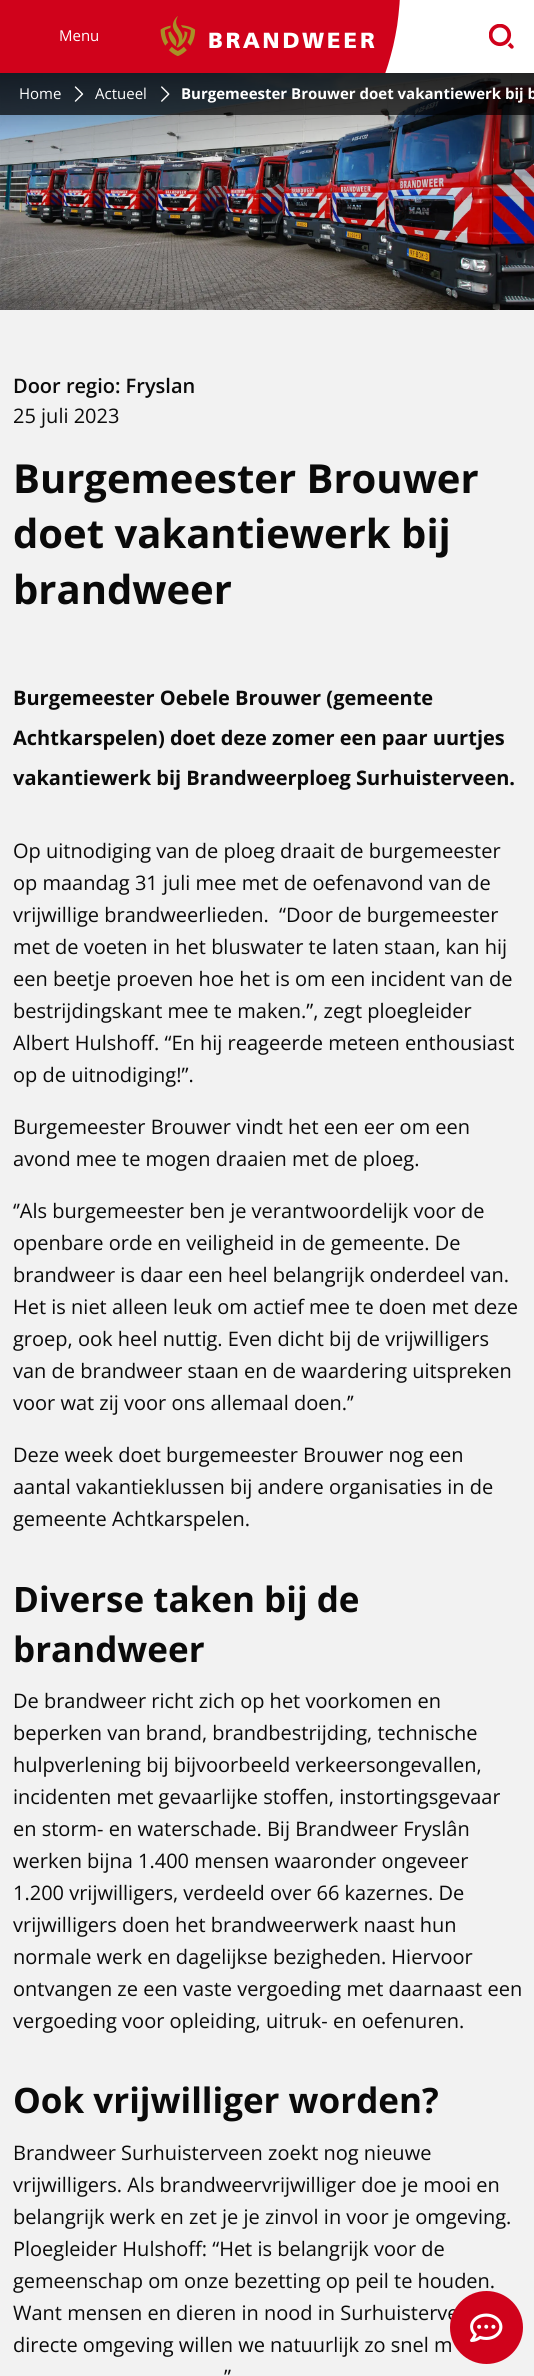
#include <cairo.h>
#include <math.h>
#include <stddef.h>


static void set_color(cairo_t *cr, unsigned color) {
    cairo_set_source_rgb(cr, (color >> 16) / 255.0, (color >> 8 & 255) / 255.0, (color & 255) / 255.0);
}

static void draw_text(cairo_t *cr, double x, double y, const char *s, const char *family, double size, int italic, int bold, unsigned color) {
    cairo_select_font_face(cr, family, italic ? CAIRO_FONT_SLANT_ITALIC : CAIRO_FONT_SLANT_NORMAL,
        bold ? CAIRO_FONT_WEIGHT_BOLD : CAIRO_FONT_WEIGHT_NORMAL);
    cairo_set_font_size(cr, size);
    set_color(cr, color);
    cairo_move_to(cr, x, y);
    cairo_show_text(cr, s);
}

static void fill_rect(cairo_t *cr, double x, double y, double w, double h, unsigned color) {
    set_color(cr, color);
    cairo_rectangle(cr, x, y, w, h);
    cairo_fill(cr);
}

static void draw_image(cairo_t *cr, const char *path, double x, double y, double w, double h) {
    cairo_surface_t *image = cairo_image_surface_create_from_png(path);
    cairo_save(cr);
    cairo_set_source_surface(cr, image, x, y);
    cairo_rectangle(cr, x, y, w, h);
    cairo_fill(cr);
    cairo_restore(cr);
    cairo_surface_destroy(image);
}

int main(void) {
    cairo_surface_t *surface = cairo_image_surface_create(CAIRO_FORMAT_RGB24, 534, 2376);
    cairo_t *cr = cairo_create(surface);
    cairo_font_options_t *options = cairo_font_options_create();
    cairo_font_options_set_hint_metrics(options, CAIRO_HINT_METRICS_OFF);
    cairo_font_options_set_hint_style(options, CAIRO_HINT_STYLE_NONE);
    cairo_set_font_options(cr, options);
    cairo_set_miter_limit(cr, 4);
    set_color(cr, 0xF2F2F2);
    cairo_paint(cr);
    fill_rect(cr, 385, 0, 149, 73, 0xFFFFFF);
    fill_rect(cr, 0, 0, 375, 73, 0xD0021B);
    draw_text(cr, 59, 41, "Menu", "Open Sans", 15, 0, 0, 0xFFFFFF);
    draw_image(cr, "assets/img1.png", 375, 0, 25, 73);
    draw_image(cr, "assets/img2.png", 160, 16, 215, 40);
    draw_image(cr, "assets/img3.png", 489, 24, 25, 25);
    draw_image(cr, "assets/img6.png", 0, 73, 534, 237);
    cairo_set_source_rgba(cr, 0, 0, 0, 0.7);
    cairo_rectangle(cr, 0, 73, 534, 42);
    cairo_fill(cr);
    draw_text(cr, 19, 99, "Home", "Open Sans", 15, 0, 0, 0xFFFFFF);
    draw_image(cr, "assets/img4.png", 74, 86, 10, 16);
    draw_text(cr, 95, 99, "Actueel", "Open Sans", 15, 0, 0, 0xFFFFFF);
    draw_image(cr, "assets/img5.png", 161, 86, 9, 16);
    draw_text(cr, 181, 99, "Burgemeester Brouwer doet vakantiewerk bij b", "Open Sans", 15, 0, 1, 0xFFFFFF);
    draw_text(cr, 13, 393, "Door regio: Fryslan", "Open Sans SemiBold", 20, 0, 0, 0x0A0A0A);
    draw_text(cr, 13, 423, "25 juli 2023", "Open Sans", 20, 0, 0, 0x0A0A0A);
    draw_text(cr, 13, 493, "Burgemeester Brouwer", "Open Sans", 40, 0, 1, 0x0A0A0A);
    draw_text(cr, 13, 548, "doet vakantiewerk bij", "Open Sans", 40, 0, 1, 0x0A0A0A);
    draw_text(cr, 13, 604, "brandweer", "Open Sans", 40, 0, 1, 0x0A0A0A);
    draw_text(cr, 13, 705, "Burgemeester Oebele Brouwer (gemeente", "Open Sans", 20, 0, 1, 0x0A0A0A);
    draw_text(cr, 13, 745, "Achtkarspelen) doet deze zomer een paar uurtjes", "Open Sans", 20, 0, 1, 0x0A0A0A);
    draw_text(cr, 13, 785, "vakantiewerk bij Brandweerploeg Surhuisterveen.", "Open Sans", 20, 0, 1, 0x0A0A0A);
    draw_text(cr, 13, 858, "Op uitnodiging van de ploeg draait de burgemeester", "Open Sans", 20, 0, 0, 0x0A0A0A);
    draw_text(cr, 13, 890, "op maandag 31 juli mee met de oefenavond van de", "Open Sans", 20, 0, 0, 0x0A0A0A);
    draw_text(cr, 13, 922, "vrijwillige brandweerlieden.  “Door de burgemeester", "Open Sans", 20, 0, 0, 0x0A0A0A);
    draw_text(cr, 13, 954, "met de voeten in het bluswater te laten staan, kan hij", "Open Sans", 20, 0, 0, 0x0A0A0A);
    draw_text(cr, 13, 986, "een beetje proeven hoe het is om een incident van de", "Open Sans", 20, 0, 0, 0x0A0A0A);
    draw_text(cr, 13, 1018, "bestrijdingskant mee te maken.”, zegt ploegleider", "Open Sans", 20, 0, 0, 0x0A0A0A);
    draw_text(cr, 13, 1050, "Albert Hulshoff. “En hij reageerde meteen enthousiast", "Open Sans", 20, 0, 0, 0x0A0A0A);
    draw_text(cr, 13, 1082, "op de uitnodiging!”.", "Open Sans", 20, 0, 0, 0x0A0A0A);
    draw_text(cr, 13, 1134, "Burgemeester Brouwer vindt het een eer om een", "Open Sans", 20, 0, 0, 0x0A0A0A);
    draw_text(cr, 13, 1166, "avond mee te mogen draaien met de ploeg.", "Open Sans", 20, 0, 0, 0x0A0A0A);
    draw_text(cr, 13, 1218, "‘’Als burgemeester ben je verantwoordelijk voor de", "Open Sans", 20, 0, 0, 0x0A0A0A);
    draw_text(cr, 13, 1250, "openbare orde en veiligheid in de gemeente. De", "Open Sans", 20, 0, 0, 0x0A0A0A);
    draw_text(cr, 13, 1282, "brandweer is daar een heel belangrijk onderdeel van.", "Open Sans", 20, 0, 0, 0x0A0A0A);
    draw_text(cr, 13, 1314, "Het is niet alleen leuk om actief mee te doen met deze", "Open Sans", 20, 0, 0, 0x0A0A0A);
    draw_text(cr, 13, 1346, "groep, ook heel nuttig. Even dicht bij de vrijwilligers", "Open Sans", 20, 0, 0, 0x0A0A0A);
    draw_text(cr, 13, 1378, "van de brandweer staan en de waardering uitspreken", "Open Sans", 20, 0, 0, 0x0A0A0A);
    draw_text(cr, 13, 1410, "voor wat zij voor ons allemaal doen.’’", "Open Sans", 20, 0, 0, 0x0A0A0A);
    draw_text(cr, 13, 1462, "Deze week doet burgemeester Brouwer nog een", "Open Sans", 20, 0, 0, 0x0A0A0A);
    draw_text(cr, 13, 1494, "aantal vakantieklussen bij andere organisaties in de", "Open Sans", 20, 0, 0, 0x0A0A0A);
    draw_text(cr, 13, 1526, "gemeente Achtkarspelen.", "Open Sans", 20, 0, 0, 0x0A0A0A);
    draw_text(cr, 13, 1612, "Diverse taken bij de", "Open Sans", 35, 0, 1, 0x0A0A0A);
    draw_text(cr, 13, 1662, "brandweer", "Open Sans", 35, 0, 1, 0x0A0A0A);
    draw_text(cr, 13, 1708, "De brandweer richt zich op het voorkomen en", "Open Sans", 20, 0, 0, 0x0A0A0A);
    draw_text(cr, 13, 1740, "beperken van brand, brandbestrijding, technische", "Open Sans", 20, 0, 0, 0x0A0A0A);
    draw_text(cr, 13, 1772, "hulpverlening bij bijvoorbeeld verkeersongevallen,", "Open Sans", 20, 0, 0, 0x0A0A0A);
    draw_text(cr, 13, 1804, "incidenten met gevaarlijke stoffen, instortingsgevaar", "Open Sans", 20, 0, 0, 0x0A0A0A);
    draw_text(cr, 13, 1836, "en storm- en waterschade. Bij Brandweer Fryslân", "Open Sans", 20, 0, 0, 0x0A0A0A);
    draw_text(cr, 13, 1868, "werken bijna 1.400 mensen waaronder ongeveer", "Open Sans", 20, 0, 0, 0x0A0A0A);
    draw_text(cr, 13, 1900, "1.200 vrijwilligers, verdeeld over 66 kazernes. De", "Open Sans", 20, 0, 0, 0x0A0A0A);
    draw_text(cr, 13, 1932, "vrijwilligers doen het brandweerwerk naast hun", "Open Sans", 20, 0, 0, 0x0A0A0A);
    draw_text(cr, 13, 1964, "normale werk en dagelijkse bezigheden. Hiervoor", "Open Sans", 20, 0, 0, 0x0A0A0A);
    draw_text(cr, 13, 1996, "ontvangen ze een vaste vergoeding met daarnaast een", "Open Sans", 20, 0, 0, 0x0A0A0A);
    draw_text(cr, 13, 2028, "vergoeding voor opleiding, uitruk- en oefenuren.", "Open Sans", 20, 0, 0, 0x0A0A0A);
    draw_text(cr, 13, 2113, "Ook vrijwilliger worden?", "Open Sans", 35, 0, 1, 0x0A0A0A);
    draw_text(cr, 13, 2160, "Brandweer Surhuisterveen zoekt nog nieuwe", "Open Sans", 20, 0, 0, 0x0A0A0A);
    draw_text(cr, 13, 2192, "vrijwilligers. Als brandweervrijwilliger doe je mooi en", "Open Sans", 20, 0, 0, 0x0A0A0A);
    draw_text(cr, 13, 2224, "belangrijk werk en zet je je zinvol in voor je omgeving.", "Open Sans", 20, 0, 0, 0x0A0A0A);
    draw_text(cr, 13, 2256, "Ploegleider Hulshoff: “Het is belangrijk voor de", "Open Sans", 20, 0, 0, 0x0A0A0A);
    draw_text(cr, 13, 2288, "gemeenschap om onze bezetting op peil te houden.", "Open Sans", 20, 0, 0, 0x0A0A0A);
    draw_text(cr, 13, 2320, "Want mensen en dieren in nood in Surhuisterve", "Open Sans", 20, 0, 0, 0x0A0A0A);
    draw_text(cr, 13, 2352, "directe omgeving willen we natuurlijk zo snel m", "Open Sans", 20, 0, 0, 0x0A0A0A);
    draw_text(cr, 224, 2384, "”", "Open Sans", 20, 0, 0, 0x0A0A0A);
    set_color(cr, 0xD0021B);
    cairo_new_path(cr);
    cairo_arc(cr, 486.5, 2327.5, 36.5, 0, 2 * M_PI);
    cairo_fill(cr);
    draw_image(cr, "assets/img7.png", 470, 2313, 33, 29);
    cairo_surface_write_to_png(surface, "output.png");
    cairo_font_options_destroy(options);
    cairo_destroy(cr);
    cairo_surface_destroy(surface);
    return 0;
}
